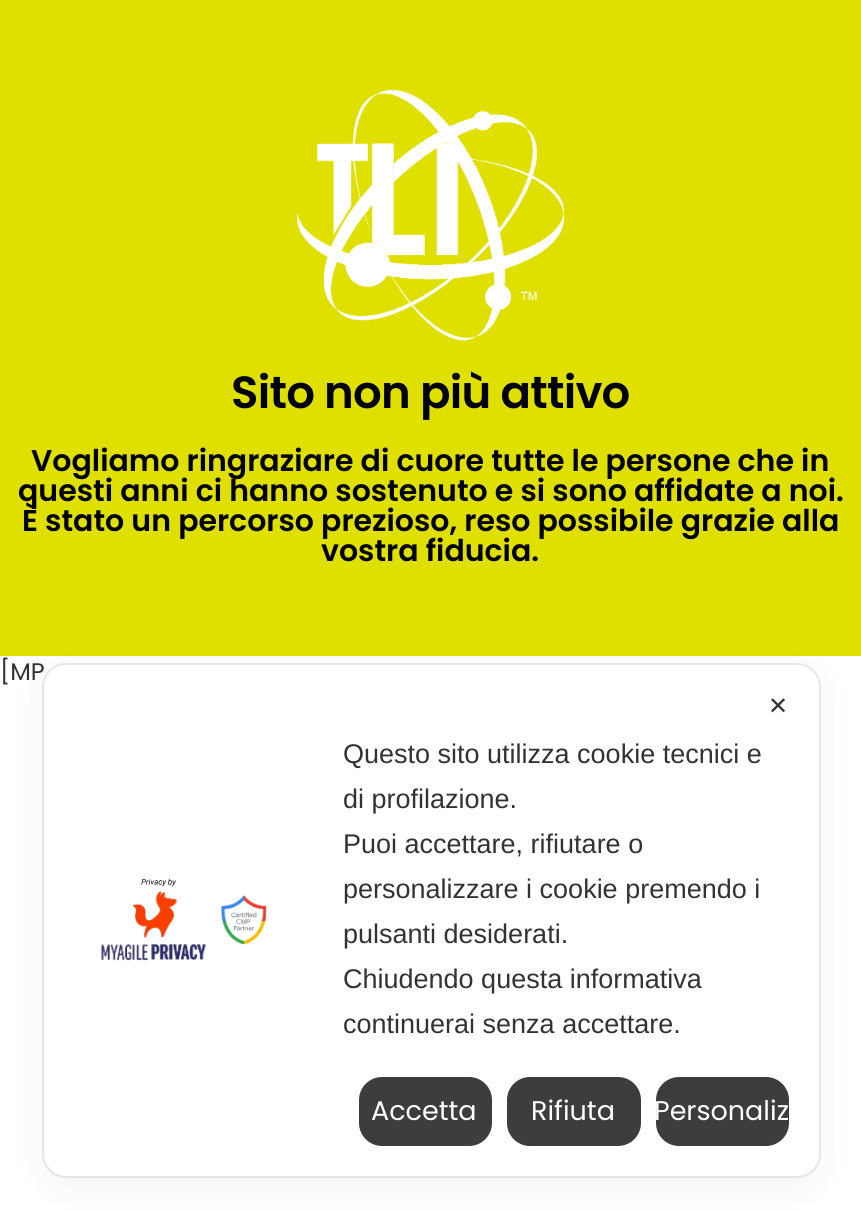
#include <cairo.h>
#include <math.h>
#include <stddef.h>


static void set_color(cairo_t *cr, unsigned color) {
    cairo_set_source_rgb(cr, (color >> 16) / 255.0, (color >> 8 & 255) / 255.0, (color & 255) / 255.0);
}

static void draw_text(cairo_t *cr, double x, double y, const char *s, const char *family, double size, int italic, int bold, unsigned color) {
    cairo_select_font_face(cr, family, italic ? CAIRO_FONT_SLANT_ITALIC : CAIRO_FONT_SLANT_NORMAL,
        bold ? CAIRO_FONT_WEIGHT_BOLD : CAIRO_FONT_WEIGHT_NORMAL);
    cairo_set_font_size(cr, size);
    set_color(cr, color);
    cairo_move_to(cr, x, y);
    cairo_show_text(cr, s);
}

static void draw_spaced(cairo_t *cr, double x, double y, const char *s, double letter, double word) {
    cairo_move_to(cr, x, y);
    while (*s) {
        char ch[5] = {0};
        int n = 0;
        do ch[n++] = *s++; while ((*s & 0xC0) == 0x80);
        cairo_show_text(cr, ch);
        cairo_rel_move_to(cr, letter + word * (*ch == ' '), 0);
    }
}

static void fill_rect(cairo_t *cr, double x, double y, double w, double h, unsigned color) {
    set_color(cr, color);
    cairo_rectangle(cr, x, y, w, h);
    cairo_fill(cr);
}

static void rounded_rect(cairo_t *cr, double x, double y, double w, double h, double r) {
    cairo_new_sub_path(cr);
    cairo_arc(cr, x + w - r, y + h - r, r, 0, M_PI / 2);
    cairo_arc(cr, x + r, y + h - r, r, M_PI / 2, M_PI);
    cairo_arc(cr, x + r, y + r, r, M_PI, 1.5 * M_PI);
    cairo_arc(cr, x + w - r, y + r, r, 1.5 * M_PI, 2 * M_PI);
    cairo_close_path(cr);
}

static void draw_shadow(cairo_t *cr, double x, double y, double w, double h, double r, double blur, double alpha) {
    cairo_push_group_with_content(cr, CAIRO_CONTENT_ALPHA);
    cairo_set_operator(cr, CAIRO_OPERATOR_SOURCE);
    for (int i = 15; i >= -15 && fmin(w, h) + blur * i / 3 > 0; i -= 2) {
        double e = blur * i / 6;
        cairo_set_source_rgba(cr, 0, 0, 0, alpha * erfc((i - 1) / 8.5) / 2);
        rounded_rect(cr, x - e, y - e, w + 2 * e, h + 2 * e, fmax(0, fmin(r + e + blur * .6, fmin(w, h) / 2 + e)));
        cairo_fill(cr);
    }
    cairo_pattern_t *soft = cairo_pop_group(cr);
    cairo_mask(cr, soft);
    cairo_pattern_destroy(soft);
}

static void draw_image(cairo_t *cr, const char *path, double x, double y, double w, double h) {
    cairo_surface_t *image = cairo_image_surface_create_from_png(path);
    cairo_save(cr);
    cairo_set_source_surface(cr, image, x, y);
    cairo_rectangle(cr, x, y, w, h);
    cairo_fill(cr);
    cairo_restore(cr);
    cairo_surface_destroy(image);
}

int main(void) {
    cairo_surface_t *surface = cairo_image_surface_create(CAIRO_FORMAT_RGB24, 861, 1211);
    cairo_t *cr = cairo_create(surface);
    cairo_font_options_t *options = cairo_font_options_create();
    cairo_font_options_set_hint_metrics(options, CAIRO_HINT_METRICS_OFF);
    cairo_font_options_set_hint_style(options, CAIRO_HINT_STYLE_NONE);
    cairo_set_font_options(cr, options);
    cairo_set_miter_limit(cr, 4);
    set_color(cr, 0xFFFFFF);
    cairo_paint(cr);
    fill_rect(cr, 0, 0, 861, 656, 0xE0E000);
    draw_image(cr, "assets/img1.png", 297, 90, 267, 251);
    cairo_select_font_face(cr, "Poppins SemiBold", CAIRO_FONT_SLANT_NORMAL, CAIRO_FONT_WEIGHT_NORMAL);
    cairo_set_font_size(cr, 45);
    set_color(cr, 0x000000);
    draw_spaced(cr, 231, 408, "Sito non più attivo", -0.75, 0);
    draw_text(cr, 31, 471, "Vogliamo ringraziare di cuore tutte le persone che in", "Poppins SemiBold", 30, 0, 0, 0x000000);
    draw_text(cr, 18, 501, "questi anni ci hanno sostenuto e si sono affidate a noi.", "Poppins SemiBold", 30, 0, 0, 0x000000);
    draw_text(cr, 22, 531, "È stato un percorso prezioso, reso possibile grazie alla", "Poppins SemiBold", 30, 0, 0, 0x000000);
    draw_text(cr, 321, 561, "vostra fiducia.", "Poppins SemiBold", 30, 0, 0, 0x000000);
    draw_text(cr, 0, 680, "[MP", "Poppins", 24, 0, 0, 0x333333);
    rounded_rect(cr, 43, 664, 777, 513, 23);
    cairo_set_source_rgba(cr, 0, 0, 0, 0.08);
    cairo_stroke(cr);
    set_color(cr, 0x000000);
    draw_shadow(cr, 44, 674, 775, 511, 23, 18, 0.05);
    set_color(cr, 0xFFFFFF);
    rounded_rect(cr, 44, 665, 775, 511, 23);
    cairo_fill(cr);
    draw_text(cr, 768, 714, "✕", "DejaVu Sans", 24, 0, 0, 0x333333);
    draw_image(cr, "assets/img2.png", 100, 878, 167, 83);
    draw_text(cr, 343, 763, "Questo sito utilizza cookie tecnici e", "Liberation Sans", 27, 0, 0, 0x333333);
    draw_text(cr, 343, 808, "di profilazione.", "Liberation Sans", 27, 0, 0, 0x333333);
    draw_text(cr, 343, 853, "Puoi accettare, rifiutare o", "Liberation Sans", 27, 0, 0, 0x333333);
    draw_text(cr, 343, 898, "personalizzare i cookie premendo i", "Liberation Sans", 27, 0, 0, 0x333333);
    draw_text(cr, 343, 943, "pulsanti desiderati.", "Liberation Sans", 27, 0, 0, 0x333333);
    draw_text(cr, 343, 988, "Chiudendo questa informativa", "Liberation Sans", 27, 0, 0, 0x333333);
    draw_text(cr, 343, 1033, "continuerai senza accettare.", "Liberation Sans", 27, 0, 0, 0x333333);
    set_color(cr, 0x3D3D3D);
    rounded_rect(cr, 359, 1077, 133, 69, 23);
    cairo_fill(cr);
    draw_text(cr, 371, 1120, "Accetta", "Poppins", 27, 0, 0, 0xFFFFFF);
    set_color(cr, 0x3D3D3D);
    rounded_rect(cr, 507, 1077, 134, 69, 23);
    cairo_fill(cr);
    draw_text(cr, 531, 1120, "Rifiuta", "Poppins", 27, 0, 0, 0xFFFFFF);
    set_color(cr, 0x3D3D3D);
    rounded_rect(cr, 656, 1077, 133, 69, 23);
    cairo_fill(cr);
    draw_text(cr, 654, 1120, "Personaliz", "Poppins", 27, 0, 0, 0xFFFFFF);
    cairo_surface_write_to_png(surface, "output.png");
    cairo_font_options_destroy(options);
    cairo_destroy(cr);
    cairo_surface_destroy(surface);
    return 0;
}
